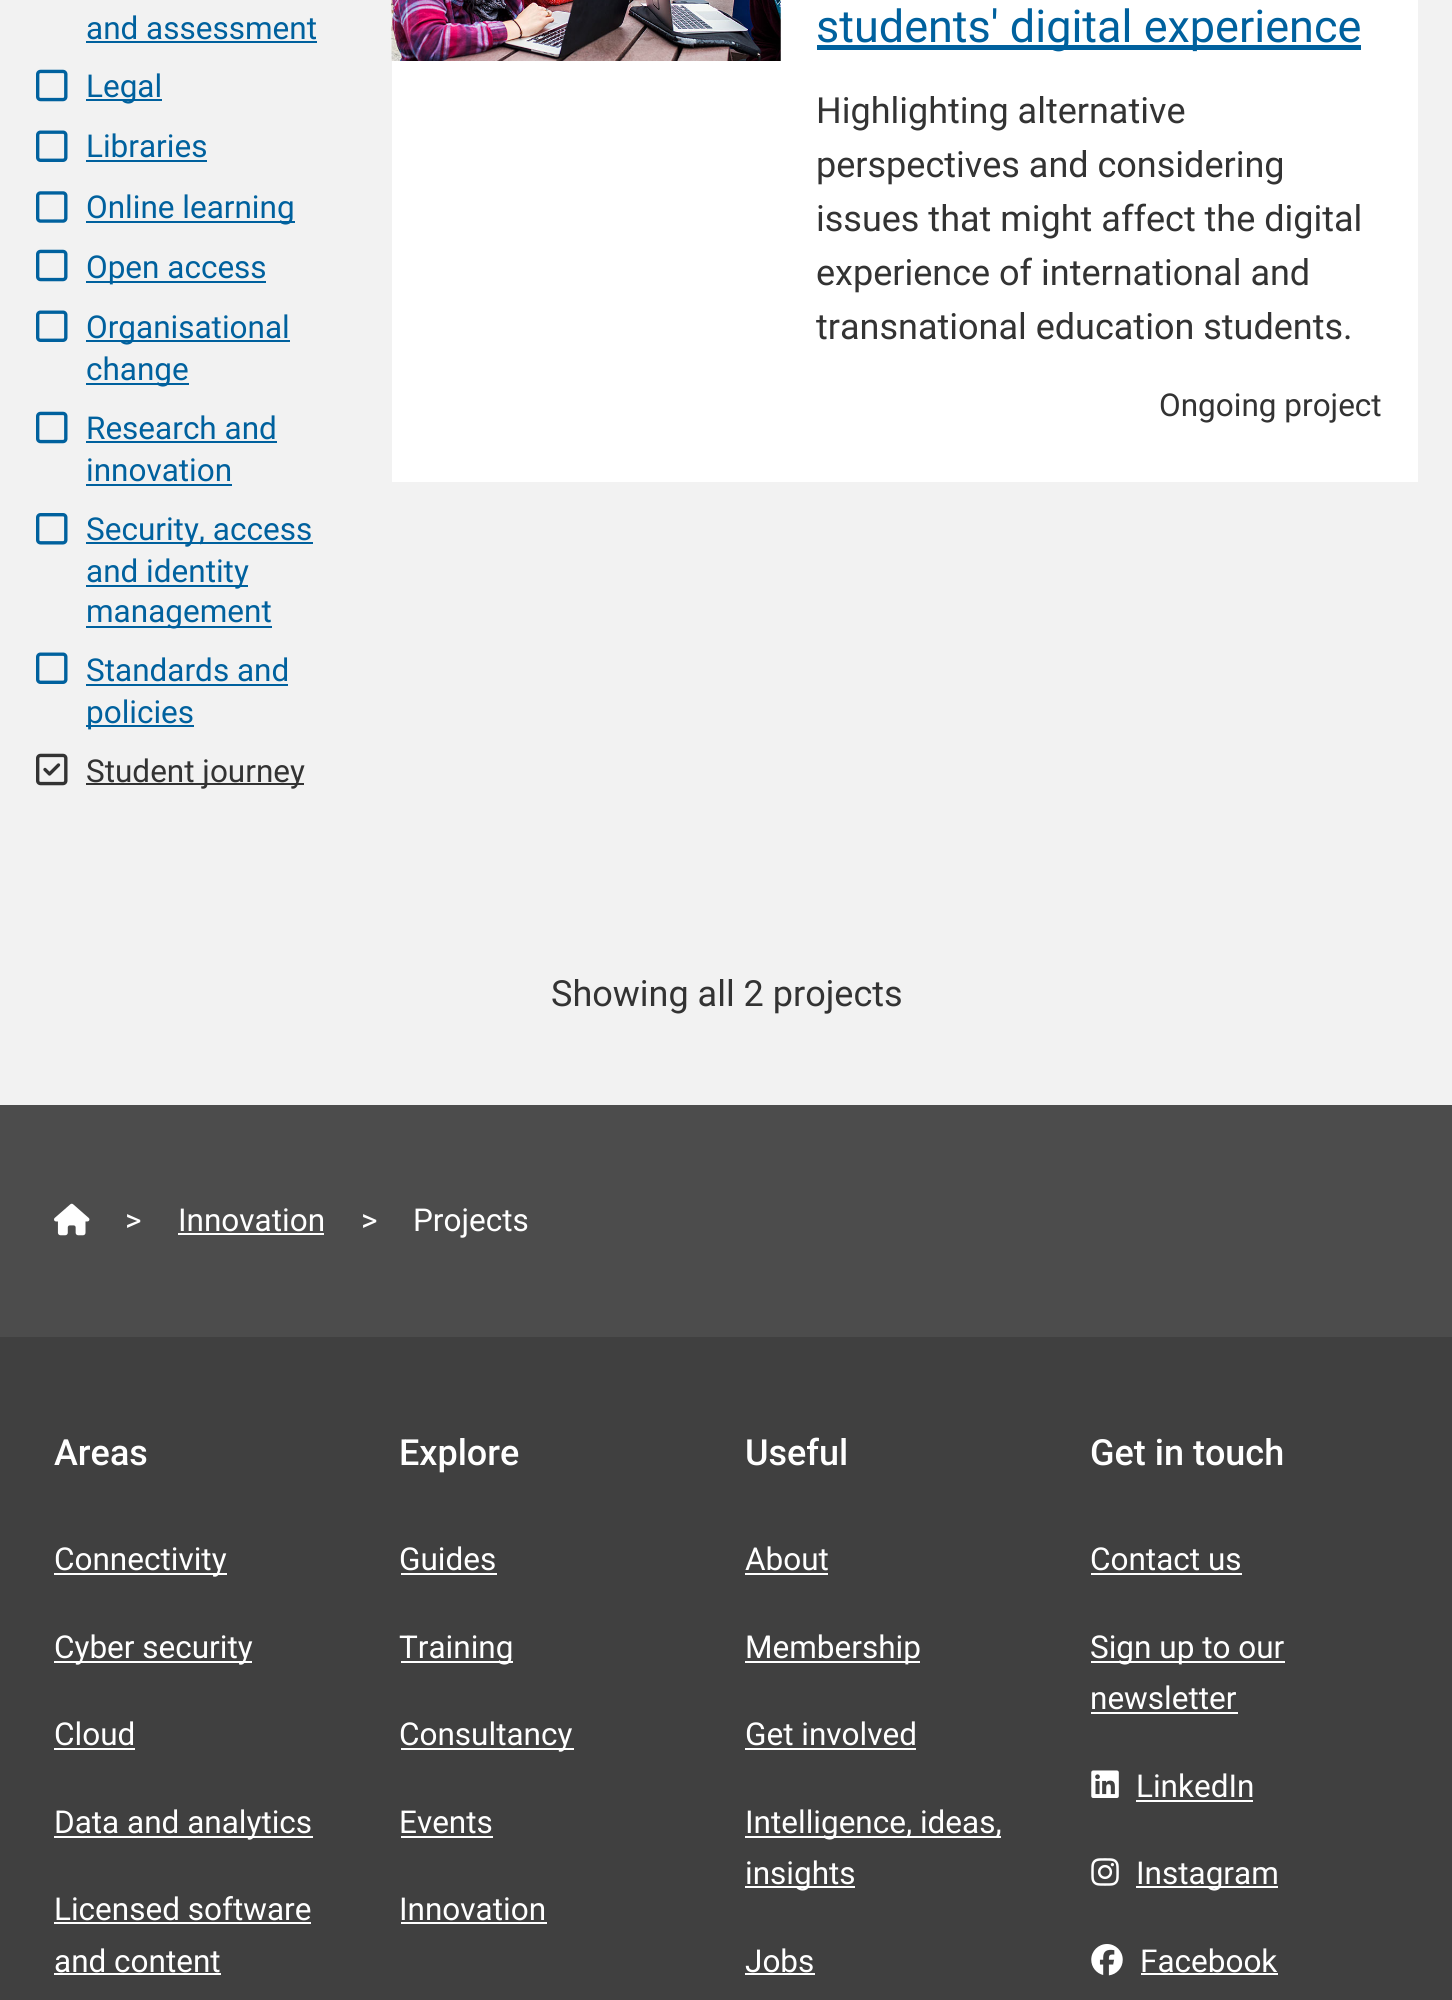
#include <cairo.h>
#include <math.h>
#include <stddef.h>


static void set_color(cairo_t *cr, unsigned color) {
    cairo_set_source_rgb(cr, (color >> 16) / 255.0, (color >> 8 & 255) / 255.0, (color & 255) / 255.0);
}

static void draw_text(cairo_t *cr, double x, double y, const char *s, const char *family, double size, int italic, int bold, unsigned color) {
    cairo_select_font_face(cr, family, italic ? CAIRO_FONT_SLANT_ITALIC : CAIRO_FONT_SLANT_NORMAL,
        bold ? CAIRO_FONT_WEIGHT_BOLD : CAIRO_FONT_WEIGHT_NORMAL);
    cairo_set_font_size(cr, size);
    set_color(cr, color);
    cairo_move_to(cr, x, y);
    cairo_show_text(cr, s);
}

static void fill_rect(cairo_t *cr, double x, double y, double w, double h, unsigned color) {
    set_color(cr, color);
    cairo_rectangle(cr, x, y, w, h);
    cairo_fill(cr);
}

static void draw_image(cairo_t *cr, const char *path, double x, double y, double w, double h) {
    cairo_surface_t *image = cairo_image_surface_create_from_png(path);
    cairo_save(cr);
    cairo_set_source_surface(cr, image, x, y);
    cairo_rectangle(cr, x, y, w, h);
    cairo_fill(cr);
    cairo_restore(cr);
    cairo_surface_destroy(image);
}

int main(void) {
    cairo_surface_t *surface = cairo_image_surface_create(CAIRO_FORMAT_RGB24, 1452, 2000);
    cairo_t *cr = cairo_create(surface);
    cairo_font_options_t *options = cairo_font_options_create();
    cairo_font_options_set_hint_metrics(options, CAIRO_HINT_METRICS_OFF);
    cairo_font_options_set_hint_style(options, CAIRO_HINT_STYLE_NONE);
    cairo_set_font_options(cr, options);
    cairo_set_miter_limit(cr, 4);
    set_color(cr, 0xF2F2F2);
    cairo_paint(cr);
    draw_text(cr, 86, 39, "and assessment", "Roboto", 31.5, 0, 0, 0x00619E);
    fill_rect(cr, 86, 41, 231, 2, 0x00619E);
    draw_image(cr, "assets/img1.png", 36, 69, 32, 33);
    fill_rect(cr, 86, 99, 76, 2, 0x00619E);
    draw_text(cr, 86, 97, "Legal", "Roboto", 31.5, 0, 0, 0x00619E);
    draw_image(cr, "assets/img2.png", 36, 130, 32, 32);
    draw_text(cr, 86, 157, "Libraries", "Roboto", 31.5, 0, 0, 0x00619E);
    fill_rect(cr, 86, 160, 121, 2, 0x00619E);
    draw_image(cr, "assets/img3.png", 36, 191, 32, 32);
    fill_rect(cr, 86, 221, 209, 2, 0x00619E);
    draw_text(cr, 86, 218, "Online learning", "Roboto", 31.5, 0, 0, 0x00619E);
    draw_image(cr, "assets/img1.png", 36, 249, 32, 33);
    fill_rect(cr, 86, 281, 180, 2, 0x00619E);
    draw_text(cr, 86, 278, "Open access", "Roboto", 31.5, 0, 0, 0x00619E);
    draw_image(cr, "assets/img2.png", 36, 310, 32, 32);
    fill_rect(cr, 86, 340, 204, 2, 0x00619E);
    draw_text(cr, 86, 338, "Organisational", "Roboto", 31.5, 0, 0, 0x00619E);
    fill_rect(cr, 86, 383, 103, 2, 0x00619E);
    draw_text(cr, 86, 380, "change", "Roboto", 31.5, 0, 0, 0x00619E);
    draw_image(cr, "assets/img1.png", 36, 411, 32, 33);
    draw_text(cr, 86, 439, "Research and", "Roboto", 31.5, 0, 0, 0x00619E);
    fill_rect(cr, 86, 441, 191, 2, 0x00619E);
    draw_text(cr, 86, 481, "innovation", "Roboto", 31.5, 0, 0, 0x00619E);
    fill_rect(cr, 86, 484, 146, 2, 0x00619E);
    draw_image(cr, "assets/img4.png", 36, 513, 32, 32);
    fill_rect(cr, 86, 542, 227, 2, 0x00619E);
    draw_text(cr, 86, 540, "Security, access", "Roboto", 31.5, 0, 0, 0x00619E);
    fill_rect(cr, 86, 585, 162, 2, 0x00619E);
    draw_text(cr, 86, 582, "and identity", "Roboto", 31.5, 0, 0, 0x00619E);
    fill_rect(cr, 86, 626, 186, 2, 0x00619E);
    draw_text(cr, 86, 622, "management", "Roboto", 31.5, 0, 0, 0x00619E);
    draw_image(cr, "assets/img2.png", 36, 652, 32, 32);
    draw_text(cr, 86, 681, "Standards and", "Roboto", 31.5, 0, 0, 0x00619E);
    fill_rect(cr, 86, 684, 202, 2, 0x00619E);
    fill_rect(cr, 86, 725, 108, 2, 0x00619E);
    draw_text(cr, 86, 723, "policies", "Roboto", 31.5, 0, 0, 0x00619E);
    draw_image(cr, "assets/img5.png", 36, 753, 32, 33);
    fill_rect(cr, 86, 783, 218, 2, 0x333333);
    draw_text(cr, 86, 782, "Student journey", "Roboto", 31.5, 0, 0, 0x333333);
    fill_rect(cr, 392, 0, 1026, 482, 0xFFFFFF);
    draw_image(cr, "assets/img6.png", 391, 0, 390, 61);
    fill_rect(cr, 817, 45, 544, 5, 0x00619E);
    draw_text(cr, 816, 42, "students' digital experience", "Roboto", 45, 0, 0, 0x00619E);
    draw_text(cr, 816, 123, "Highlighting alternative", "Roboto", 36, 0, 0, 0x333333);
    draw_text(cr, 816, 177, "perspectives and considering", "Roboto", 36, 0, 0, 0x333333);
    draw_text(cr, 816, 231, "issues that might affect the digital", "Roboto", 36, 0, 0, 0x333333);
    draw_text(cr, 816, 285, "experience of international and", "Roboto", 36, 0, 0, 0x333333);
    draw_text(cr, 816, 339, "transnational education students.", "Roboto", 36, 0, 0, 0x333333);
    draw_text(cr, 1159, 416, "Ongoing project", "Roboto", 31.5, 0, 0, 0x333333);
    draw_text(cr, 551, 1006, "Showing all 2 projects", "Roboto", 36, 0, 0, 0x333333);
    fill_rect(cr, 0, 1105, 1452, 232, 0x4C4C4C);
    draw_image(cr, "assets/img7.png", 54, 1203, 36, 33);
    draw_text(cr, 125, 1231, ">", "Roboto", 31.5, 0, 0, 0xFFFFFF);
    draw_text(cr, 178, 1231, "Innovation", "Roboto", 31.5, 0, 0, 0xFFFFFF);
    fill_rect(cr, 178, 1233, 146, 2, 0xFFFFFF);
    draw_text(cr, 361, 1231, ">", "Roboto", 31.5, 0, 0, 0xFFFFFF);
    draw_text(cr, 413, 1231, "Projects", "Roboto", 31.5, 0, 0, 0xFFFFFF);
    fill_rect(cr, 0, 1337, 1452, 663, 0x404040);
    draw_text(cr, 54, 1465, "Areas", "Roboto Medium", 36, 0, 0, 0xFFFFFF);
    fill_rect(cr, 54, 1573, 173, 2, 0xFFFFFF);
    draw_text(cr, 54, 1570, "Connectivity", "Roboto", 31.5, 0, 0, 0xFFFFFF);
    fill_rect(cr, 54, 1661, 198, 2, 0xFFFFFF);
    draw_text(cr, 54, 1658, "Cyber security", "Roboto", 31.5, 0, 0, 0xFFFFFF);
    draw_text(cr, 54, 1745, "Cloud", "Roboto", 31.5, 0, 0, 0xFFFFFF);
    fill_rect(cr, 54, 1748, 81, 2, 0xFFFFFF);
    fill_rect(cr, 54, 1836, 259, 2, 0xFFFFFF);
    draw_text(cr, 54, 1833, "Data and analytics", "Roboto", 31.5, 0, 0, 0xFFFFFF);
    draw_text(cr, 54, 1920, "Licensed software", "Roboto", 31.5, 0, 0, 0xFFFFFF);
    fill_rect(cr, 54, 1922, 257, 2, 0xFFFFFF);
    draw_text(cr, 54, 1972, "and content", "Roboto", 31.5, 0, 0, 0xFFFFFF);
    fill_rect(cr, 54, 1973, 167, 2, 0xFFFFFF);
    draw_text(cr, 399, 1465, "Explore", "Roboto Medium", 36, 0, 0, 0xFFFFFF);
    draw_text(cr, 399, 1570, "Guides", "Roboto", 31.5, 0, 0, 0xFFFFFF);
    fill_rect(cr, 401, 1573, 96, 2, 0xFFFFFF);
    fill_rect(cr, 401, 1661, 112, 2, 0xFFFFFF);
    draw_text(cr, 399, 1658, "Training", "Roboto", 31.5, 0, 0, 0xFFFFFF);
    fill_rect(cr, 401, 1748, 173, 2, 0xFFFFFF);
    draw_text(cr, 399, 1745, "Consultancy", "Roboto", 31.5, 0, 0, 0xFFFFFF);
    draw_text(cr, 399, 1833, "Events", "Roboto", 31.5, 0, 0, 0xFFFFFF);
    fill_rect(cr, 401, 1836, 92, 2, 0xFFFFFF);
    draw_text(cr, 399, 1920, "Innovation", "Roboto", 31.5, 0, 0, 0xFFFFFF);
    fill_rect(cr, 401, 1922, 146, 2, 0xFFFFFF);
    draw_text(cr, 745, 1465, "Useful", "Roboto Medium", 36, 0, 0, 0xFFFFFF);
    draw_text(cr, 745, 1570, "About", "Roboto", 31.5, 0, 0, 0xFFFFFF);
    fill_rect(cr, 745, 1573, 83, 2, 0xFFFFFF);
    fill_rect(cr, 745, 1661, 175, 2, 0xFFFFFF);
    draw_text(cr, 745, 1658, "Membership", "Roboto", 31.5, 0, 0, 0xFFFFFF);
    draw_text(cr, 745, 1745, "Get involved", "Roboto", 31.5, 0, 0, 0xFFFFFF);
    fill_rect(cr, 745, 1748, 171, 2, 0xFFFFFF);
    fill_rect(cr, 745, 1836, 256, 2, 0xFFFFFF);
    draw_text(cr, 745, 1833, "Intelligence, ideas,", "Roboto", 31.5, 0, 0, 0xFFFFFF);
    fill_rect(cr, 745, 1886, 110, 2, 0xFFFFFF);
    draw_text(cr, 745, 1884, "insights", "Roboto", 31.5, 0, 0, 0xFFFFFF);
    draw_text(cr, 745, 1972, "Jobs", "Roboto", 31.5, 0, 0, 0xFFFFFF);
    fill_rect(cr, 745, 1973, 70, 2, 0xFFFFFF);
    draw_text(cr, 1090, 1465, "Get in touch", "Roboto Medium", 36, 0, 0, 0xFFFFFF);
    draw_text(cr, 1090, 1570, "Contact us", "Roboto", 31.5, 0, 0, 0xFFFFFF);
    fill_rect(cr, 1091, 1573, 151, 2, 0xFFFFFF);
    fill_rect(cr, 1091, 1661, 194, 2, 0xFFFFFF);
    draw_text(cr, 1090, 1658, "Sign up to our", "Roboto", 31.5, 0, 0, 0xFFFFFF);
    draw_text(cr, 1090, 1709, "newsletter", "Roboto", 31.5, 0, 0, 0xFFFFFF);
    fill_rect(cr, 1091, 1712, 147, 2, 0xFFFFFF);
    draw_image(cr, "assets/img8.png", 1091, 1770, 28, 28);
    draw_text(cr, 1136, 1797, "LinkedIn", "Roboto", 31.5, 0, 0, 0xFFFFFF);
    fill_rect(cr, 1136, 1800, 117, 2, 0xFFFFFF);
    draw_image(cr, "assets/img9.png", 1091, 1858, 28, 28);
    fill_rect(cr, 1136, 1886, 142, 2, 0xFFFFFF);
    draw_text(cr, 1136, 1884, "Instagram", "Roboto", 31.5, 0, 0, 0xFFFFFF);
    draw_image(cr, "assets/img10.png", 1091, 1944, 32, 32);
    draw_text(cr, 1140, 1972, "Facebook", "Roboto", 31.5, 0, 0, 0xFFFFFF);
    fill_rect(cr, 1141, 1973, 137, 2, 0xFFFFFF);
    cairo_surface_write_to_png(surface, "output.png");
    cairo_font_options_destroy(options);
    cairo_destroy(cr);
    cairo_surface_destroy(surface);
    return 0;
}
